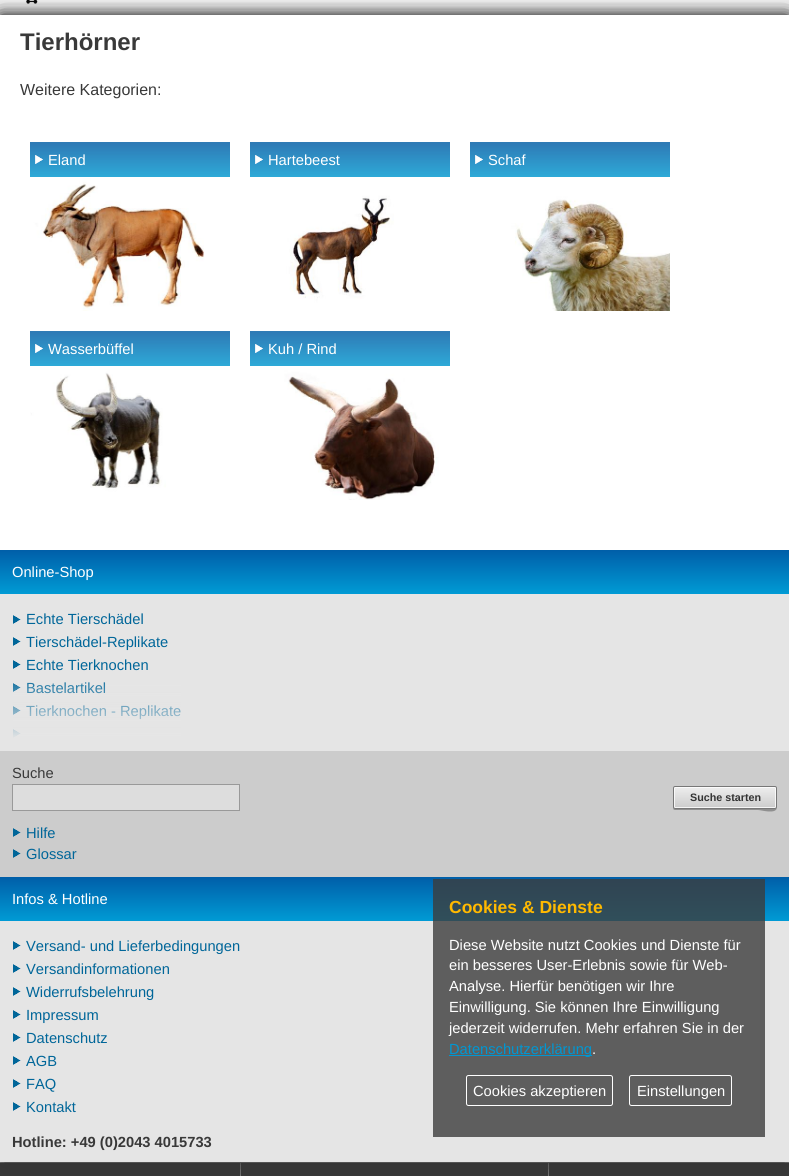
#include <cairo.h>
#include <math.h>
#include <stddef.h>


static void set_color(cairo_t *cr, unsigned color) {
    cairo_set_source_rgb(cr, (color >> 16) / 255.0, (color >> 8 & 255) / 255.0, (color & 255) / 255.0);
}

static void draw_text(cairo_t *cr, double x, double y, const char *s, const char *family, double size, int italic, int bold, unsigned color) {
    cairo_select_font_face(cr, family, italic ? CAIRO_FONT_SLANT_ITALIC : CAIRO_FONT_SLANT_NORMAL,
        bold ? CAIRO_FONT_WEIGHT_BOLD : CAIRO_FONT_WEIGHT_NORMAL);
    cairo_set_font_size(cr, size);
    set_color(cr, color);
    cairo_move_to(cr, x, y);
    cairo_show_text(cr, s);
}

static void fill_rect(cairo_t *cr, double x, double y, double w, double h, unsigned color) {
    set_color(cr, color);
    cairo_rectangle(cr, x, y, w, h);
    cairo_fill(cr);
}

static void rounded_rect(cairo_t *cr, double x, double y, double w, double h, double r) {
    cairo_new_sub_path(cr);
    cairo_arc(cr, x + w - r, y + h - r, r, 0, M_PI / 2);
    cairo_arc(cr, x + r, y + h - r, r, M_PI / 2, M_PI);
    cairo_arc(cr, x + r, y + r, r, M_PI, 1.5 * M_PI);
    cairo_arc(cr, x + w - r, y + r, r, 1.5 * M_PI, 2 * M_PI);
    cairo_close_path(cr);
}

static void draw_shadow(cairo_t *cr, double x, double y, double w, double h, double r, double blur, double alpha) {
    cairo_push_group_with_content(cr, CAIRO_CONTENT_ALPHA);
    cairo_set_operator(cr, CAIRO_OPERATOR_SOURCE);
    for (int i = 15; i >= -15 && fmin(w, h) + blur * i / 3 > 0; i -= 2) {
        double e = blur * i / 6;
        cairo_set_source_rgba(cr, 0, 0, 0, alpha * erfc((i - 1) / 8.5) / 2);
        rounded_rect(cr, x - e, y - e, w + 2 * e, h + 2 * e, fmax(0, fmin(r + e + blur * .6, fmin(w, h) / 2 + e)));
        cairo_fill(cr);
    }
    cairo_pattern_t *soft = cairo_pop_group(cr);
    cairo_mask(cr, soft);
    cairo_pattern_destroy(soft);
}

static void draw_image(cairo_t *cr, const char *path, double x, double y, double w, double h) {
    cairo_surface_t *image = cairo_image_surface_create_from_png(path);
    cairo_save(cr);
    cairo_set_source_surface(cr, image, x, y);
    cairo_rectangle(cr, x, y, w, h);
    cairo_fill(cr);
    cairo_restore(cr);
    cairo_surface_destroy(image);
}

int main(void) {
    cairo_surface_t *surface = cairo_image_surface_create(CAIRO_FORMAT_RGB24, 789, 1176);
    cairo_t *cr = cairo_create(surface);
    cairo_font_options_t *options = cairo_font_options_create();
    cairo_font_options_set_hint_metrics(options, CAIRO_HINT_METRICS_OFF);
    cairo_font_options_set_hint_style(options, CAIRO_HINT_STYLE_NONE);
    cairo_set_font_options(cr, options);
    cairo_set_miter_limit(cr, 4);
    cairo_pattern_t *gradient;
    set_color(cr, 0xC0C0C0);
    cairo_paint(cr);
    fill_rect(cr, 0, 0, 789, 15, 0xFFFFFF);
    draw_image(cr, "assets/img1.png", 26, 0, 12, 4);
    set_color(cr, 0x333333);
    draw_shadow(cr, 0, 1168, 789, 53, 0, 15, 1);
    fill_rect(cr, 0, 1163, 789, 13, 0x393939);
    fill_rect(cr, 240, 1163, 1, 13, 0x8B8B8B);
    fill_rect(cr, 548, 1163, 1, 13, 0x8B8B8B);
    set_color(cr, 0x333333);
    draw_shadow(cr, 0, 20, 789, 1147, 0, 15, 1);
    fill_rect(cr, 0, 594, 789, 568, 0xE5E5E5);
    set_color(cr, 0x333333);
    draw_shadow(cr, 0, 15, 789, 535, 0, 7.5, 1);
    fill_rect(cr, 0, 15, 789, 535, 0xFFFFFF);
    draw_text(cr, 20, 50, "Tierhörner", "Liberation Sans", 24, 0, 1, 0x393939);
    draw_text(cr, 20, 95, "Weitere Kategorien:", "Liberation Sans", 16, 0, 0, 0x393939);
    draw_image(cr, "assets/img2.png", 30, 142, 200, 35);
    draw_text(cr, 48, 165, "Eland", "Liberation Sans", 14.7, 0, 0, 0xFFFFFF);
    draw_image(cr, "assets/img3.png", 30, 178, 200, 133);
    draw_image(cr, "assets/img2.png", 250, 142, 200, 35);
    draw_text(cr, 268, 165, "Hartebeest", "Liberation Sans", 14.7, 0, 0, 0xFFFFFF);
    draw_image(cr, "assets/img4.png", 250, 178, 200, 133);
    draw_image(cr, "assets/img2.png", 470, 142, 200, 35);
    draw_text(cr, 488, 165, "Schaf", "Liberation Sans", 14.7, 0, 0, 0xFFFFFF);
    draw_image(cr, "assets/img5.png", 470, 178, 200, 133);
    draw_image(cr, "assets/img2.png", 30, 331, 200, 35);
    draw_text(cr, 48, 354, "Wasserbüffel", "Liberation Sans", 14.7, 0, 0, 0xFFFFFF);
    draw_image(cr, "assets/img6.png", 30, 367, 200, 133);
    draw_image(cr, "assets/img2.png", 250, 331, 200, 35);
    draw_text(cr, 268, 354, "Kuh / Rind", "Liberation Sans", 14.7, 0, 0, 0xFFFFFF);
    draw_image(cr, "assets/img7.png", 250, 367, 200, 133);
    draw_image(cr, "assets/img8.png", 0, 550, 789, 44);
    draw_text(cr, 12, 577, "Online-Shop", "Liberation Sans", 14.7, 0, 0, 0xFFFFFF);
    draw_image(cr, "assets/img9.png", 13, 615, 8, 9);
    draw_text(cr, 26, 624, "Echte Tierschädel", "Liberation Sans", 14.7, 0, 0, 0x006699);
    draw_image(cr, "assets/img9.png", 13, 637, 8, 9);
    draw_text(cr, 26, 647, "Tierschädel-Replikate", "Liberation Sans", 14.7, 0, 0, 0x006699);
    draw_image(cr, "assets/img9.png", 13, 660, 8, 9);
    draw_text(cr, 26, 670, "Echte Tierknochen", "Liberation Sans", 14.7, 0, 0, 0x006699);
    draw_image(cr, "assets/img9.png", 13, 683, 8, 9);
    draw_text(cr, 26, 693, "Bastelartikel", "Liberation Sans", 14.7, 0, 0, 0x006699);
    draw_image(cr, "assets/img9.png", 13, 706, 8, 9);
    draw_text(cr, 26, 716, "Tierknochen - Replikate", "Liberation Sans", 14.7, 0, 0, 0x006699);
    draw_image(cr, "assets/img9.png", 13, 729, 8, 9);
    gradient = cairo_pattern_create_linear(395, 609, 395, 739);
    cairo_pattern_add_color_stop_rgba(gradient, 0.5, 0.898, 0.898, 0.898, 0);
    cairo_pattern_add_color_stop_rgba(gradient, 1, 0.898, 0.898, 0.898, 1);
    cairo_set_source(cr, gradient);
    cairo_pattern_destroy(gradient);
    cairo_rectangle(cr, 13, 682, 168, 56);
    cairo_fill(cr);
    fill_rect(cr, 0, 751, 789, 126, 0xCCCCCC);
    draw_text(cr, 12, 778, "Suche", "Liberation Sans", 14.7, 0, 0, 0x393939);
    set_color(cr, 0xDDDDDD);
    cairo_rectangle(cr, 12.5, 784.5, 227, 26);
    cairo_fill_preserve(cr);
    set_color(cr, 0x999999);
    cairo_set_line_width(cr, 1);
    cairo_stroke(cr);
    set_color(cr, 0x8F8F8F);
    cairo_new_path(cr);
    cairo_move_to(cr, 673, 807);
    cairo_curve_to(cr, 673, 808, 673, 810, 675, 810);
    cairo_line_to(cr, 758, 810);
    cairo_curve_to(cr, 761, 810, 777, 815, 777, 807);
    cairo_curve_to(cr, 777, 808, 776, 809, 775, 809);
    cairo_line_to(cr, 675, 809);
    cairo_curve_to(cr, 674, 809, 673, 808, 673, 807);
    cairo_close_path(cr);
    cairo_fill(cr);
    cairo_save(cr);
    rounded_rect(cr, 673, 786, 104, 23, 2);
    cairo_clip(cr);
    gradient = cairo_pattern_create_linear(725, 787, 725, 808);
    cairo_pattern_add_color_stop_rgba(gradient, 0, 0.933, 0.933, 0.933, 1);
    cairo_pattern_add_color_stop_rgba(gradient, 1, 0.8, 0.8, 0.8, 1);
    cairo_set_source(cr, gradient);
    cairo_pattern_destroy(gradient);
    cairo_rectangle(cr, 673, 787, 104, 21);
    cairo_fill(cr);
    cairo_restore(cr);
    rounded_rect(cr, 674.5, 787.5, 101, 20, 0.5);
    cairo_set_source_rgba(cr, 1, 1, 1, 0.8);
    cairo_stroke(cr);
    rounded_rect(cr, 673.5, 786.5, 103, 22, 1.5);
    set_color(cr, 0x777777);
    cairo_stroke(cr);
    draw_text(cr, 690, 801, "Suche starten", "Liberation Sans", 10.75, 0, 1, 0x333333);
    draw_image(cr, "assets/img10.png", 13, 828, 8, 9);
    draw_text(cr, 26, 838, "Hilfe", "Liberation Sans", 14.7, 0, 0, 0x006699);
    draw_image(cr, "assets/img10.png", 13, 849, 8, 9);
    draw_text(cr, 26, 859, "Glossar", "Liberation Sans", 14.7, 0, 0, 0x006699);
    draw_image(cr, "assets/img8.png", 0, 877, 789, 44);
    draw_text(cr, 12, 904, "Infos & Hotline", "Liberation Sans", 14.7, 0, 0, 0xFFFFFF);
    draw_image(cr, "assets/img9.png", 13, 941, 8, 9);
    draw_text(cr, 26, 951, "Versand- und Lieferbedingungen", "Liberation Sans", 14.7, 0, 0, 0x006699);
    draw_image(cr, "assets/img9.png", 13, 964, 8, 9);
    draw_text(cr, 26, 974, "Versandinformationen", "Liberation Sans", 14.7, 0, 0, 0x006699);
    draw_image(cr, "assets/img9.png", 13, 987, 8, 9);
    draw_text(cr, 26, 997, "Widerrufsbelehrung", "Liberation Sans", 14.7, 0, 0, 0x006699);
    draw_image(cr, "assets/img9.png", 13, 1010, 8, 9);
    draw_text(cr, 26, 1020, "Impressum", "Liberation Sans", 14.7, 0, 0, 0x006699);
    draw_image(cr, "assets/img9.png", 13, 1033, 8, 9);
    draw_text(cr, 26, 1043, "Datenschutz", "Liberation Sans", 14.7, 0, 0, 0x006699);
    draw_image(cr, "assets/img9.png", 13, 1056, 8, 9);
    draw_text(cr, 26, 1066, "AGB", "Liberation Sans", 14.7, 0, 0, 0x006699);
    draw_image(cr, "assets/img9.png", 13, 1079, 8, 9);
    draw_text(cr, 26, 1089, "FAQ", "Liberation Sans", 14.7, 0, 0, 0x006699);
    draw_image(cr, "assets/img9.png", 13, 1102, 8, 9);
    draw_text(cr, 26, 1112, "Kontakt", "Liberation Sans", 14.7, 0, 0, 0x006699);
    draw_text(cr, 12, 1147, "Hotline: +49 (0)2043 4015733", "Liberation Sans", 14.7, 0, 1, 0x393939);
    cairo_set_source_rgba(cr, 0.235, 0.235, 0.235, 0.8);
    cairo_rectangle(cr, 433, 879, 332, 258);
    cairo_fill(cr);
    draw_text(cr, 449, 913, "Cookies & Dienste", "Liberation Sans", 17.5, 0, 1, 0xFFB900);
    draw_text(cr, 449, 950, "Diese Website nutzt Cookies und Dienste für", "Liberation Sans", 14.7, 0, 0, 0xFFFFFF);
    draw_text(cr, 449, 970, "ein besseres User-Erlebnis sowie für Web-", "Liberation Sans", 14.7, 0, 0, 0xFFFFFF);
    draw_text(cr, 449, 991, "Analyse. Hierfür benötigen wir Ihre", "Liberation Sans", 14.7, 0, 0, 0xFFFFFF);
    draw_text(cr, 449, 1012, "Einwilligung. Sie können Ihre Einwilligung", "Liberation Sans", 14.7, 0, 0, 0xFFFFFF);
    draw_text(cr, 449, 1033, "jederzeit widerrufen. Mehr erfahren Sie in der", "Liberation Sans", 14.7, 0, 0, 0xFFFFFF);
    fill_rect(cr, 449, 1055, 143, 1, 0x0097D2);
    draw_text(cr, 449, 1054, "Datenschutzerklärung", "Liberation Sans", 14.7, 0, 0, 0x0097D2);
    draw_text(cr, 592, 1054, ".", "Liberation Sans", 14.7, 0, 0, 0xFFFFFF);
    rounded_rect(cr, 466.5, 1075.5, 146, 30, 2);
    cairo_stroke(cr);
    draw_text(cr, 473, 1096, "Cookies akzeptieren", "Liberation Sans", 14.7, 0, 0, 0xFFFFFF);
    rounded_rect(cr, 629.5, 1075.5, 102, 30, 2);
    cairo_stroke(cr);
    draw_text(cr, 637, 1096, "Einstellungen", "Liberation Sans", 14.7, 0, 0, 0xFFFFFF);
    cairo_surface_write_to_png(surface, "output.png");
    cairo_font_options_destroy(options);
    cairo_destroy(cr);
    cairo_surface_destroy(surface);
    return 0;
}
